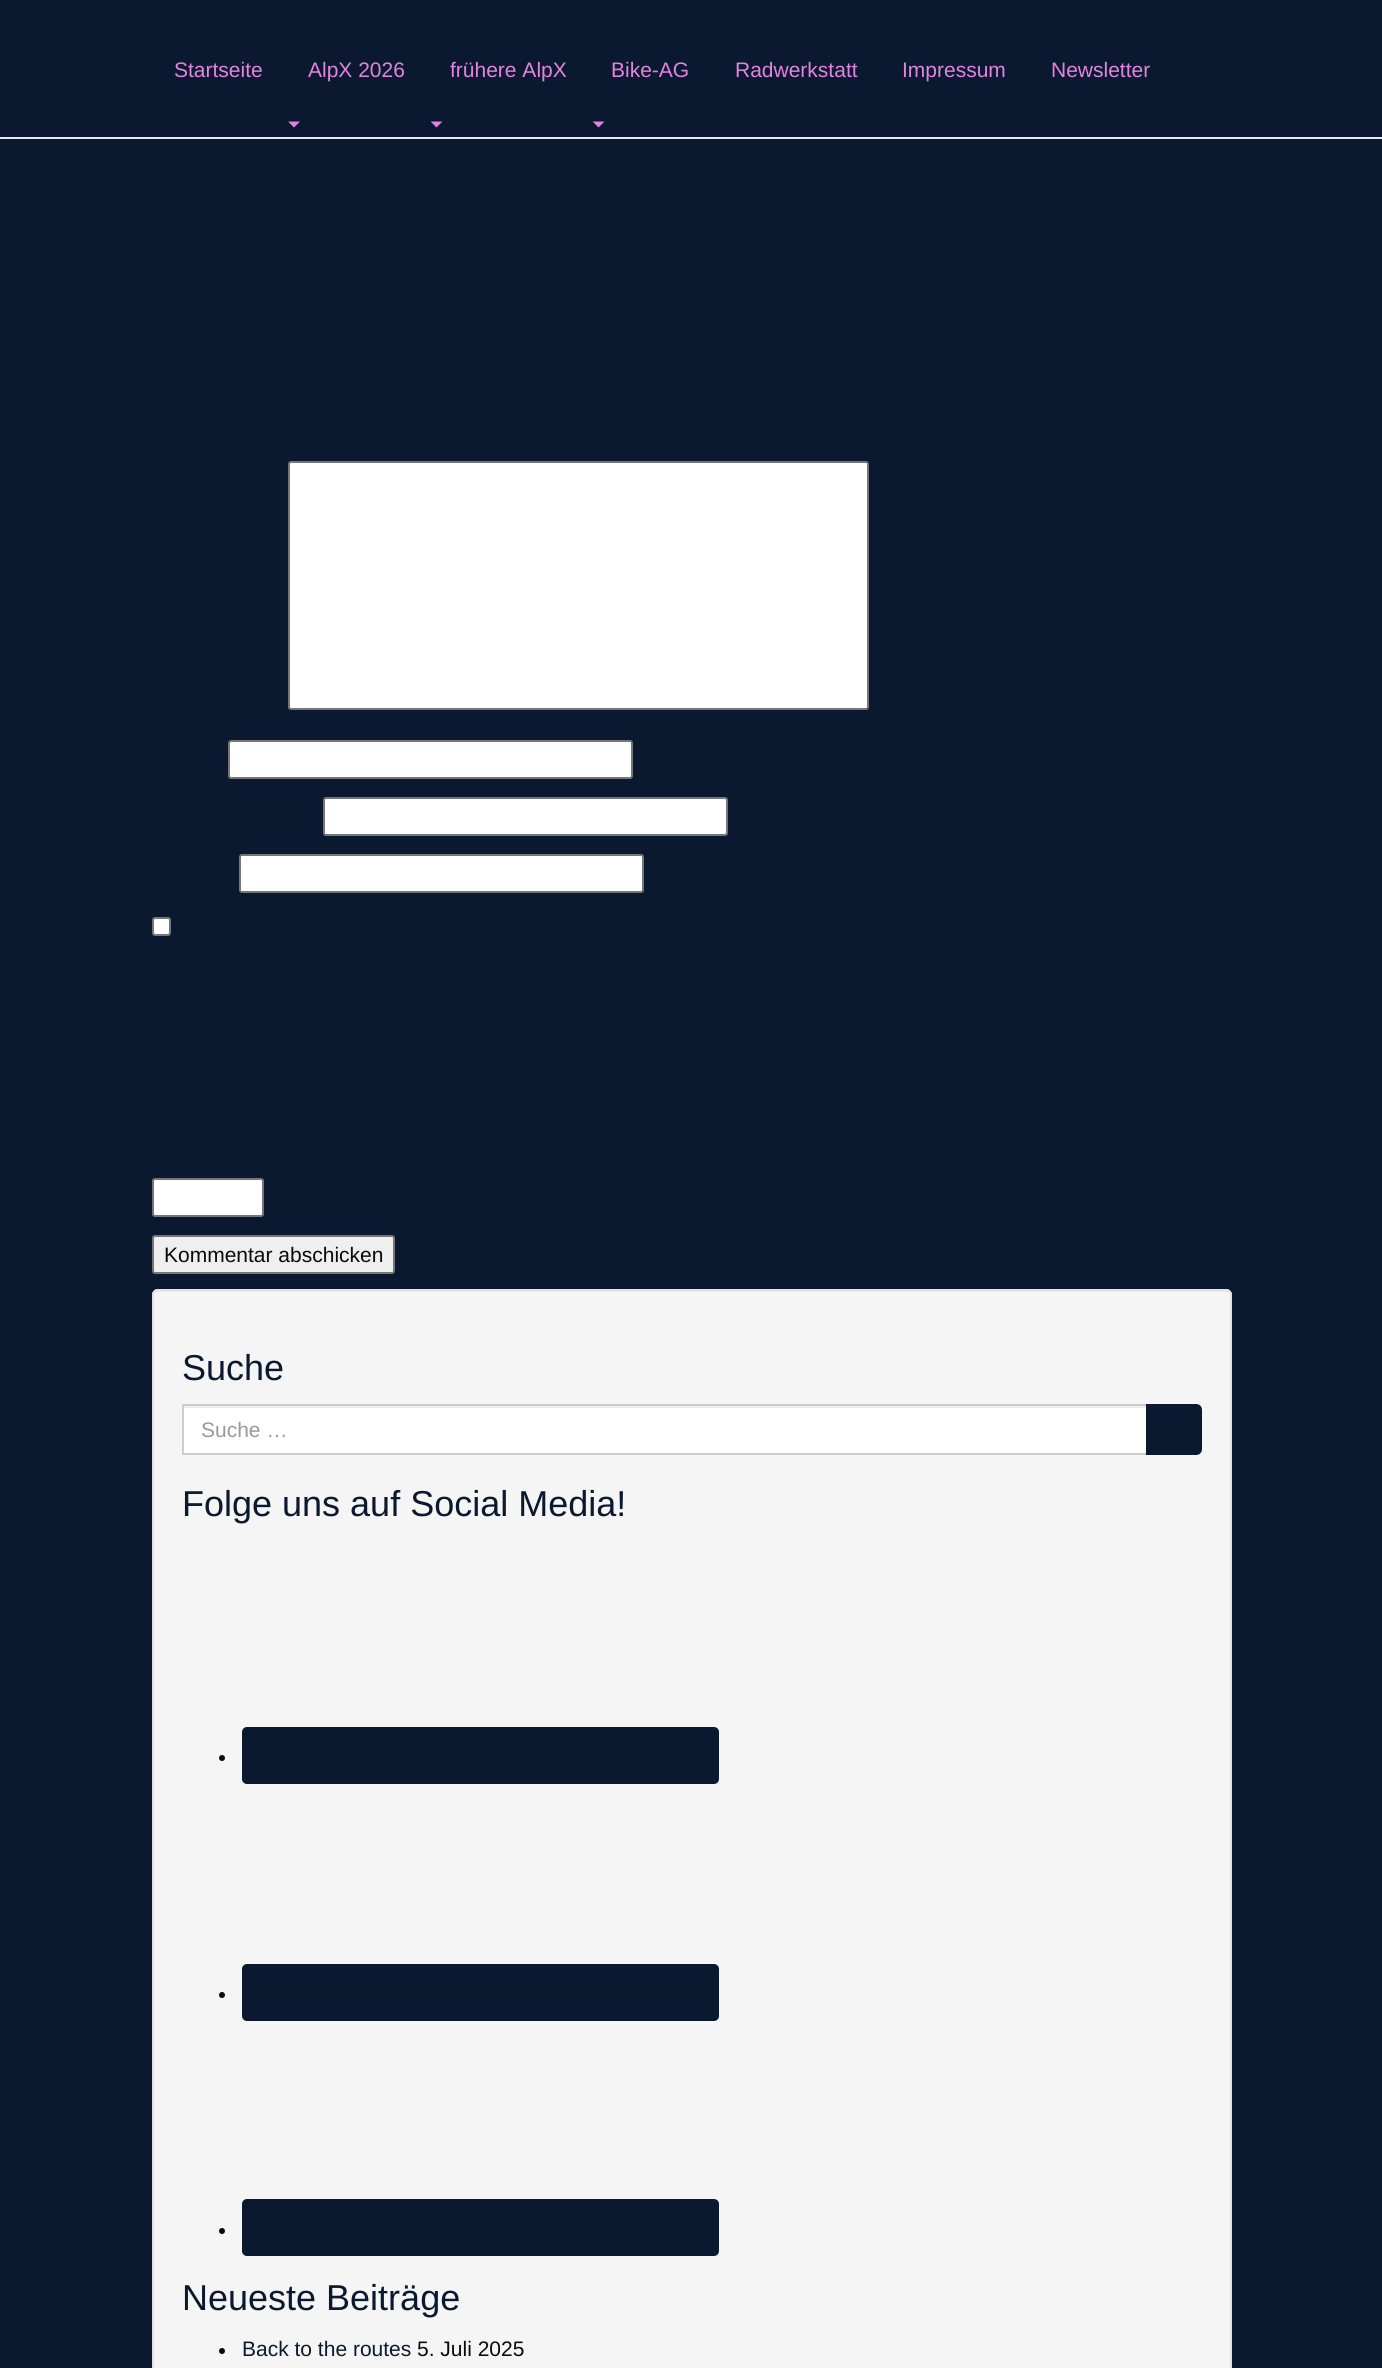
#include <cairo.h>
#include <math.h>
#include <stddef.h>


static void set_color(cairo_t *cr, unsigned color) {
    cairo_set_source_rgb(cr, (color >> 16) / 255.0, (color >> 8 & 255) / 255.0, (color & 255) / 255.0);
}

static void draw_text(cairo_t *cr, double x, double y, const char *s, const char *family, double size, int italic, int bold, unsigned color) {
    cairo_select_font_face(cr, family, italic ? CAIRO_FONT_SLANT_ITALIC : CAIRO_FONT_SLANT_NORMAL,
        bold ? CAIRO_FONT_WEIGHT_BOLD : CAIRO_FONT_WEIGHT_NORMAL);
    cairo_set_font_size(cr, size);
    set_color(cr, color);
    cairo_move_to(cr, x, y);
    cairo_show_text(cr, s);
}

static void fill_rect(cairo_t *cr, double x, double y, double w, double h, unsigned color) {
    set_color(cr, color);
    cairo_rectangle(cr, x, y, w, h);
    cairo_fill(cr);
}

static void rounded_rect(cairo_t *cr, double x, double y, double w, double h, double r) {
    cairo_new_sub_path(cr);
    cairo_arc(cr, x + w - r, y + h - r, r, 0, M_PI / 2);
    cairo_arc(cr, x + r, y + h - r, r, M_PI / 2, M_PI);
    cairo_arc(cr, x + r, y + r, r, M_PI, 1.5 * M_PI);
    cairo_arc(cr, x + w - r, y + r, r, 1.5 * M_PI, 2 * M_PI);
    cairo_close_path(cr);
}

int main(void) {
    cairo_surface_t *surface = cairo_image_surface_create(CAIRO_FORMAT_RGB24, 1382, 2368);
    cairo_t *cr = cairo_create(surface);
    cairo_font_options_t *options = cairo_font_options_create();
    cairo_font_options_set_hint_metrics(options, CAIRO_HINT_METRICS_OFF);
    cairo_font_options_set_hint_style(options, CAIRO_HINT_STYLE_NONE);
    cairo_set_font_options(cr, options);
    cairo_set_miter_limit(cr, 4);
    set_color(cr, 0x0A192F);
    cairo_paint(cr);
    fill_rect(cr, 0, 137, 1382, 2, 0xE7E7E7);
    draw_text(cr, 174, 77, "Startseite", "Liberation Sans", 21, 0, 0, 0xE283DF);
    draw_text(cr, 308, 77, "AlpX 2026", "Liberation Sans", 21, 0, 0, 0xE283DF);
    cairo_new_path(cr);
    cairo_move_to(cr, 288, 121.5);
    cairo_line_to(cr, 300, 121.5);
    cairo_line_to(cr, 294, 127.5);
    cairo_close_path(cr);
    cairo_fill(cr);
    draw_text(cr, 450, 77, "frühere AlpX", "Liberation Sans", 21, 0, 0, 0xE283DF);
    cairo_new_path(cr);
    cairo_move_to(cr, 430.5, 121.5);
    cairo_line_to(cr, 442.5, 121.5);
    cairo_line_to(cr, 436.5, 127.5);
    cairo_close_path(cr);
    cairo_fill(cr);
    draw_text(cr, 611, 77, "Bike-AG", "Liberation Sans", 21, 0, 0, 0xE283DF);
    cairo_new_path(cr);
    cairo_move_to(cr, 592.5, 121.5);
    cairo_line_to(cr, 604.5, 121.5);
    cairo_line_to(cr, 598.5, 127.5);
    cairo_close_path(cr);
    cairo_fill(cr);
    draw_text(cr, 735, 77, "Radwerkstatt", "Liberation Sans", 21, 0, 0, 0xE283DF);
    draw_text(cr, 902, 77, "Impressum", "Liberation Sans", 21, 0, 0, 0xE283DF);
    draw_text(cr, 1051, 77, "Newsletter", "Liberation Sans", 21, 0, 0, 0xE283DF);
    set_color(cr, 0xFFFFFF);
    rounded_rect(cr, 289, 462, 579, 247, 2);
    cairo_fill_preserve(cr);
    set_color(cr, 0x767676);
    cairo_stroke(cr);
    set_color(cr, 0xFFFFFF);
    rounded_rect(cr, 229, 741, 403, 37, 2);
    cairo_fill_preserve(cr);
    set_color(cr, 0x767676);
    cairo_stroke(cr);
    set_color(cr, 0xFFFFFF);
    rounded_rect(cr, 324, 798, 403, 37, 2);
    cairo_fill_preserve(cr);
    set_color(cr, 0x767676);
    cairo_stroke(cr);
    set_color(cr, 0xFFFFFF);
    rounded_rect(cr, 240, 855, 403, 37, 2);
    cairo_fill_preserve(cr);
    set_color(cr, 0x767676);
    cairo_stroke(cr);
    set_color(cr, 0xFFFFFF);
    rounded_rect(cr, 153, 918, 17, 17, 2);
    cairo_fill_preserve(cr);
    set_color(cr, 0x767676);
    cairo_stroke(cr);
    set_color(cr, 0xFFFFFF);
    rounded_rect(cr, 153, 1179, 110, 37, 2);
    cairo_fill_preserve(cr);
    set_color(cr, 0x767676);
    cairo_stroke(cr);
    set_color(cr, 0xEFEFEF);
    rounded_rect(cr, 153, 1236, 241, 37, 2);
    cairo_fill_preserve(cr);
    set_color(cr, 0x767676);
    cairo_stroke(cr);
    draw_text(cr, 164, 1262, "Kommentar abschicken", "Liberation Sans", 21, 0, 0, 0x0A0A0A);
    set_color(cr, 0xF5F5F5);
    rounded_rect(cr, 152, 1289, 1080, 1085, 6);
    cairo_fill(cr);
    set_color(cr, 0xE9E9E9);
    cairo_new_path(cr);
    cairo_move_to(cr, 158, 1292);
    cairo_line_to(cr, 1226, 1292);
    cairo_curve_to(cr, 1228, 1292, 1230, 1294, 1230, 1296);
    cairo_curve_to(cr, 1230, 1293, 1228, 1290, 1225, 1290);
    cairo_line_to(cr, 158, 1290);
    cairo_curve_to(cr, 155, 1290, 153, 1293, 153, 1296);
    cairo_curve_to(cr, 153, 1294, 155, 1292, 158, 1292);
    cairo_close_path(cr);
    cairo_fill(cr);
    rounded_rect(cr, 153, 1290, 1078, 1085, 5);
    set_color(cr, 0xE3E3E3);
    cairo_stroke(cr);
    draw_text(cr, 182, 1380, "Suche", "Liberation Sans", 36, 0, 0, 0x0A192F);
    fill_rect(cr, 184, 1408, 962, 45, 0xFFFFFF);
    fill_rect(cr, 183, 1406, 963, 2, 0xECECEC);
    cairo_rectangle(cr, 183, 1405, 964, 49);
    set_color(cr, 0xCCCCCC);
    cairo_stroke(cr);
    draw_text(cr, 201, 1437, "Suche …", "Liberation Sans", 21, 0, 0, 0x999999);
    set_color(cr, 0x0A192F);
    cairo_new_path(cr);
    cairo_move_to(cr, 1147, 1405);
    cairo_line_to(cr, 1196, 1405);
    cairo_curve_to(cr, 1199, 1405, 1201, 1407, 1201, 1410);
    cairo_line_to(cr, 1201, 1449);
    cairo_curve_to(cr, 1201, 1452, 1199, 1454, 1196, 1454);
    cairo_line_to(cr, 1147, 1454);
    cairo_close_path(cr);
    cairo_fill_preserve(cr);
    cairo_stroke(cr);
    draw_text(cr, 182, 1516, "Folge uns auf Social Media!", "Liberation Sans", 36, 0, 0, 0x0A192F);
    set_color(cr, 0x0A0A0A);
    cairo_new_path(cr);
    cairo_arc(cr, 222, 1758, 3, 0, 2 * M_PI);
    cairo_fill(cr);
    set_color(cr, 0x0A192F);
    rounded_rect(cr, 242, 1727, 477, 57, 5);
    cairo_fill(cr);
    set_color(cr, 0x0A0A0A);
    cairo_arc(cr, 222, 1995, 3, 0, 2 * M_PI);
    cairo_fill(cr);
    set_color(cr, 0x0A192F);
    rounded_rect(cr, 242, 1964, 477, 57, 5);
    cairo_fill(cr);
    set_color(cr, 0x0A0A0A);
    cairo_arc(cr, 222, 2231, 3, 0, 2 * M_PI);
    cairo_fill(cr);
    set_color(cr, 0x0A192F);
    rounded_rect(cr, 242, 2199, 477, 57, 5);
    cairo_fill(cr);
    draw_text(cr, 182, 2310, "Neueste Beiträge", "Liberation Sans", 36, 0, 0, 0x0A192F);
    set_color(cr, 0x0A0A0A);
    cairo_new_path(cr);
    cairo_arc(cr, 222, 2351, 3, 0, 2 * M_PI);
    cairo_fill(cr);
    draw_text(cr, 242, 2356, "Back to the routes", "Liberation Sans", 21, 0, 0, 0x0A192F);
    draw_text(cr, 417, 2356, "5. Juli 2025", "Liberation Sans", 21, 0, 0, 0x0A0A0A);
    cairo_surface_write_to_png(surface, "output.png");
    cairo_font_options_destroy(options);
    cairo_destroy(cr);
    cairo_surface_destroy(surface);
    return 0;
}
